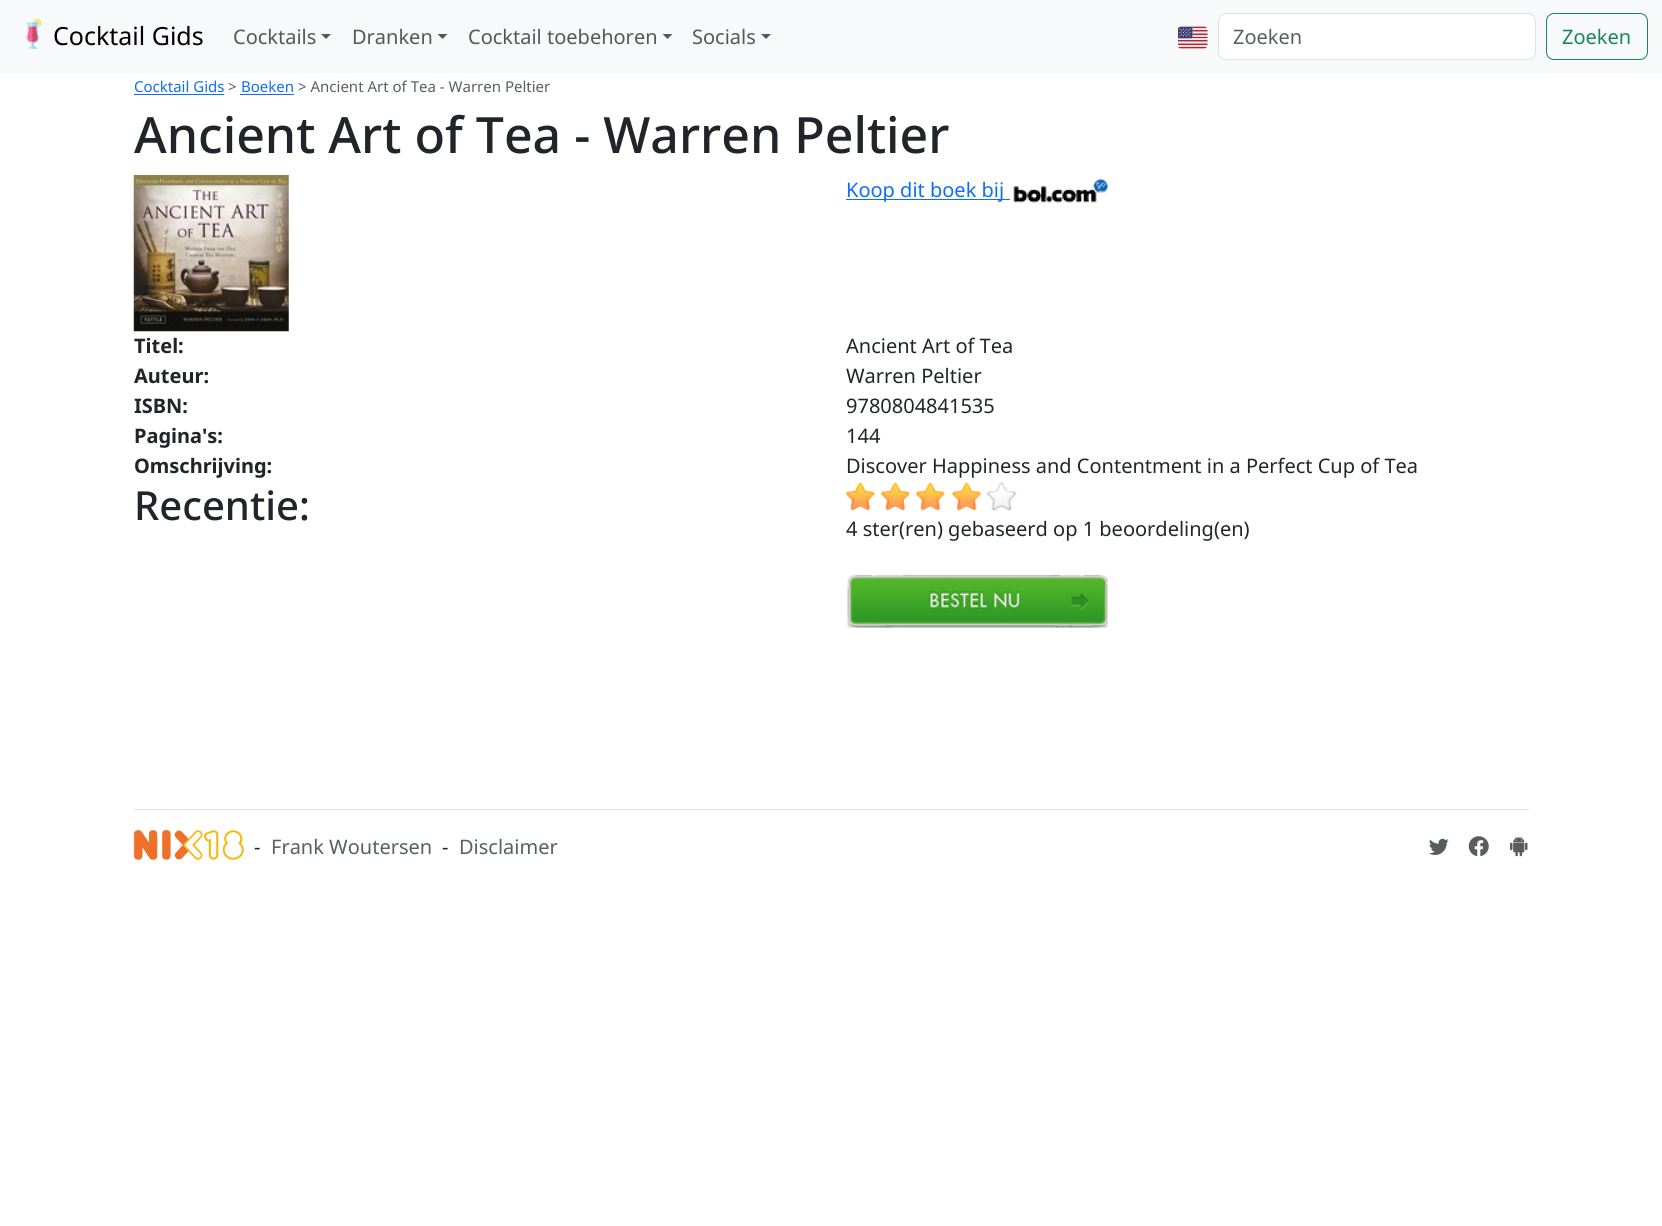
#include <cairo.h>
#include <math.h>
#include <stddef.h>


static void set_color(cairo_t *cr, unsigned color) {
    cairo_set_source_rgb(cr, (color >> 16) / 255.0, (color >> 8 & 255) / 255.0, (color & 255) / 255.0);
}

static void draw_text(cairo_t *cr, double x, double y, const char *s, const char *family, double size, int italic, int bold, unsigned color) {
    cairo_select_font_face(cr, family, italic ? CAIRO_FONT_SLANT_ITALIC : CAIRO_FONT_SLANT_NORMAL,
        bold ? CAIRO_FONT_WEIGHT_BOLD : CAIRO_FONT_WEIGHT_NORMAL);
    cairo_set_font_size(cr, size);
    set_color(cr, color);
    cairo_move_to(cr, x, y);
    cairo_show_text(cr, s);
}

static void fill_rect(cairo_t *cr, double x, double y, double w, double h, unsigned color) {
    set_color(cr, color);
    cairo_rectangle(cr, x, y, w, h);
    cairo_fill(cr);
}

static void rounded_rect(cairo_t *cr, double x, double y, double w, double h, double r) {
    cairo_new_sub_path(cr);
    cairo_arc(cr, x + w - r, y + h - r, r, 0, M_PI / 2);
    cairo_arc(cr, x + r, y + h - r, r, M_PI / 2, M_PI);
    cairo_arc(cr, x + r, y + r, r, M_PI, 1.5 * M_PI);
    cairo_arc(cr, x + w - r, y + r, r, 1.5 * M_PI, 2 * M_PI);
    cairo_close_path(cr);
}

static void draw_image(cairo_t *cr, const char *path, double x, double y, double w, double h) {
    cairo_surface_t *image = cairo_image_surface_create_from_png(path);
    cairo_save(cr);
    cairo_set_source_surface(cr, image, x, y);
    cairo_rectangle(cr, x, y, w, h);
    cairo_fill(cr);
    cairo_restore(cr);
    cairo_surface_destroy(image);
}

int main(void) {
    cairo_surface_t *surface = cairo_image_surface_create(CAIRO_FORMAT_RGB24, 1662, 1226);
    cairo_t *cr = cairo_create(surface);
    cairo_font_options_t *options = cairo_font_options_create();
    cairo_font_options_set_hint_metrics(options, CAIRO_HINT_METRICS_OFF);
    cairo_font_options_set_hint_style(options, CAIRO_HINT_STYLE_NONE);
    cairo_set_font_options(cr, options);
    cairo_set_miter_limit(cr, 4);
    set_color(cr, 0xFFFFFF);
    cairo_paint(cr);
    fill_rect(cr, 0, 0, 1662, 73, 0xF8F9FA);
    draw_image(cr, "assets/img1.png", 26, 19, 16, 30);
    draw_text(cr, 53, 45, "Cocktail Gids", "Noto Sans", 25, 0, 0, 0x000000);
    draw_text(cr, 233, 44, "Cocktails", "Noto Sans", 20, 0, 0, 0x575758);
    cairo_new_path(cr);
    cairo_move_to(cr, 321, 34);
    cairo_line_to(cr, 331, 34);
    cairo_line_to(cr, 326, 39);
    cairo_close_path(cr);
    cairo_fill(cr);
    draw_text(cr, 352, 44, "Dranken", "Noto Sans", 20, 0, 0, 0x575758);
    cairo_new_path(cr);
    cairo_move_to(cr, 437.5, 34);
    cairo_line_to(cr, 447.5, 34);
    cairo_line_to(cr, 442.5, 39);
    cairo_close_path(cr);
    cairo_fill(cr);
    draw_text(cr, 468, 44, "Cocktail toebehoren", "Noto Sans", 20, 0, 0, 0x575758);
    cairo_new_path(cr);
    cairo_move_to(cr, 662.5, 34);
    cairo_line_to(cr, 672.5, 34);
    cairo_line_to(cr, 667.5, 39);
    cairo_close_path(cr);
    cairo_fill(cr);
    draw_text(cr, 692, 44, "Socials", "Noto Sans", 20, 0, 0, 0x575758);
    cairo_new_path(cr);
    cairo_move_to(cr, 761, 34);
    cairo_line_to(cr, 771, 34);
    cairo_line_to(cr, 766, 39);
    cairo_close_path(cr);
    cairo_fill(cr);
    draw_image(cr, "assets/img2.png", 1178, 26, 30, 23);
    set_color(cr, 0xFFFFFF);
    rounded_rect(cr, 1219, 14, 316, 45, 6);
    cairo_fill(cr);
    rounded_rect(cr, 1218.5, 13.5, 317, 46, 7.5);
    set_color(cr, 0xDEE2E6);
    cairo_set_line_width(cr, 1);
    cairo_stroke(cr);
    draw_text(cr, 1233, 44, "Zoeken", "Noto Sans", 20, 0, 0, 0x585F62);
    rounded_rect(cr, 1546.5, 13.5, 101, 46, 7.5);
    set_color(cr, 0x198754);
    cairo_stroke(cr);
    draw_text(cr, 1562, 44, "Zoeken", "Noto Sans", 20, 0, 0, 0x198754);
    draw_text(cr, 134, 92, "Cocktail Gids", "Noto Sans", 15, 0, 0, 0x0D6EFD);
    fill_rect(cr, 134, 94, 90, 1, 0x0D6EFD);
    draw_text(cr, 228, 92, ">", "Noto Sans", 15, 0, 0, 0x585F62);
    draw_text(cr, 241, 92, "Boeken", "Noto Sans", 15, 0, 0, 0x0D6EFD);
    fill_rect(cr, 240, 94, 54, 1, 0x0D6EFD);
    draw_text(cr, 298, 92, "> Ancient Art of Tea - Warren Peltier", "Noto Sans", 15, 0, 0, 0x585F62);
    draw_text(cr, 134, 153, "Ancient Art of Tea - Warren Peltier", "Noto Sans Medium", 50, 0, 0, 0x212529);
    draw_image(cr, "assets/img3.png", 133, 175, 156, 157);
    fill_rect(cr, 846, 199, 164, 1, 0x0D6EFD);
    draw_text(cr, 846, 197, "Koop dit boek bij", "Noto Sans", 20, 0, 0, 0x0D6EFD);
    draw_image(cr, "assets/img4.png", 1013, 178, 95, 25);
    draw_text(cr, 134, 353, "Titel:", "Noto Sans", 20, 0, 1, 0x212529);
    draw_text(cr, 846, 353, "Ancient Art of Tea", "Noto Sans", 20, 0, 0, 0x212529);
    draw_text(cr, 134, 383, "Auteur:", "Noto Sans", 20, 0, 1, 0x212529);
    draw_text(cr, 846, 383, "Warren Peltier", "Noto Sans", 20, 0, 0, 0x212529);
    draw_text(cr, 134, 413, "ISBN:", "Noto Sans", 20, 0, 1, 0x212529);
    draw_text(cr, 846, 413, "9780804841535", "Noto Sans", 20, 0, 0, 0x212529);
    draw_text(cr, 134, 443, "Pagina's:", "Noto Sans", 20, 0, 1, 0x212529);
    draw_text(cr, 846, 443, "144", "Noto Sans", 20, 0, 0, 0x212529);
    draw_text(cr, 134, 473, "Omschrijving:", "Noto Sans", 20, 0, 1, 0x212529);
    draw_text(cr, 846, 473, "Discover Happiness and Contentment in a Perfect Cup of Tea", "Noto Sans", 20, 0, 0, 0x212529);
    draw_text(cr, 134, 520, "Recentie:", "Noto Sans Medium", 40, 0, 0, 0x212529);
    draw_image(cr, "assets/img5.png", 846, 482, 30, 29);
    draw_image(cr, "assets/img5.png", 881, 482, 30, 29);
    draw_image(cr, "assets/img5.png", 916, 482, 30, 29);
    draw_image(cr, "assets/img6.png", 952, 482, 30, 29);
    draw_image(cr, "assets/img7.png", 987, 482, 30, 29);
    draw_text(cr, 846, 536, "4 ster(ren) gebaseerd op 1 beoordeling(en)", "Noto Sans", 20, 0, 0, 0x212529);
    draw_image(cr, "assets/img8.png", 847, 574, 261, 54);
    fill_rect(cr, 134, 809, 1395, 1, 0xDEE2E6);
    draw_image(cr, "assets/img9.png", 133, 830, 111, 30);
    draw_text(cr, 254, 854, "-", "Noto Sans", 20, 0, 0, 0x212529);
    draw_text(cr, 271, 854, "Frank Woutersen", "Noto Sans", 20, 0, 0, 0x585F62);
    draw_text(cr, 442, 854, "-", "Noto Sans", 20, 0, 0, 0x212529);
    draw_text(cr, 459, 854, "Disclaimer", "Noto Sans", 20, 0, 0, 0x585F62);
    draw_image(cr, "assets/img10.png", 1429, 838, 20, 17);
    draw_image(cr, "assets/img11.png", 1468, 836, 21, 21);
    draw_image(cr, "assets/img12.png", 1510, 836, 18, 21);
    cairo_surface_write_to_png(surface, "output.png");
    cairo_font_options_destroy(options);
    cairo_destroy(cr);
    cairo_surface_destroy(surface);
    return 0;
}
